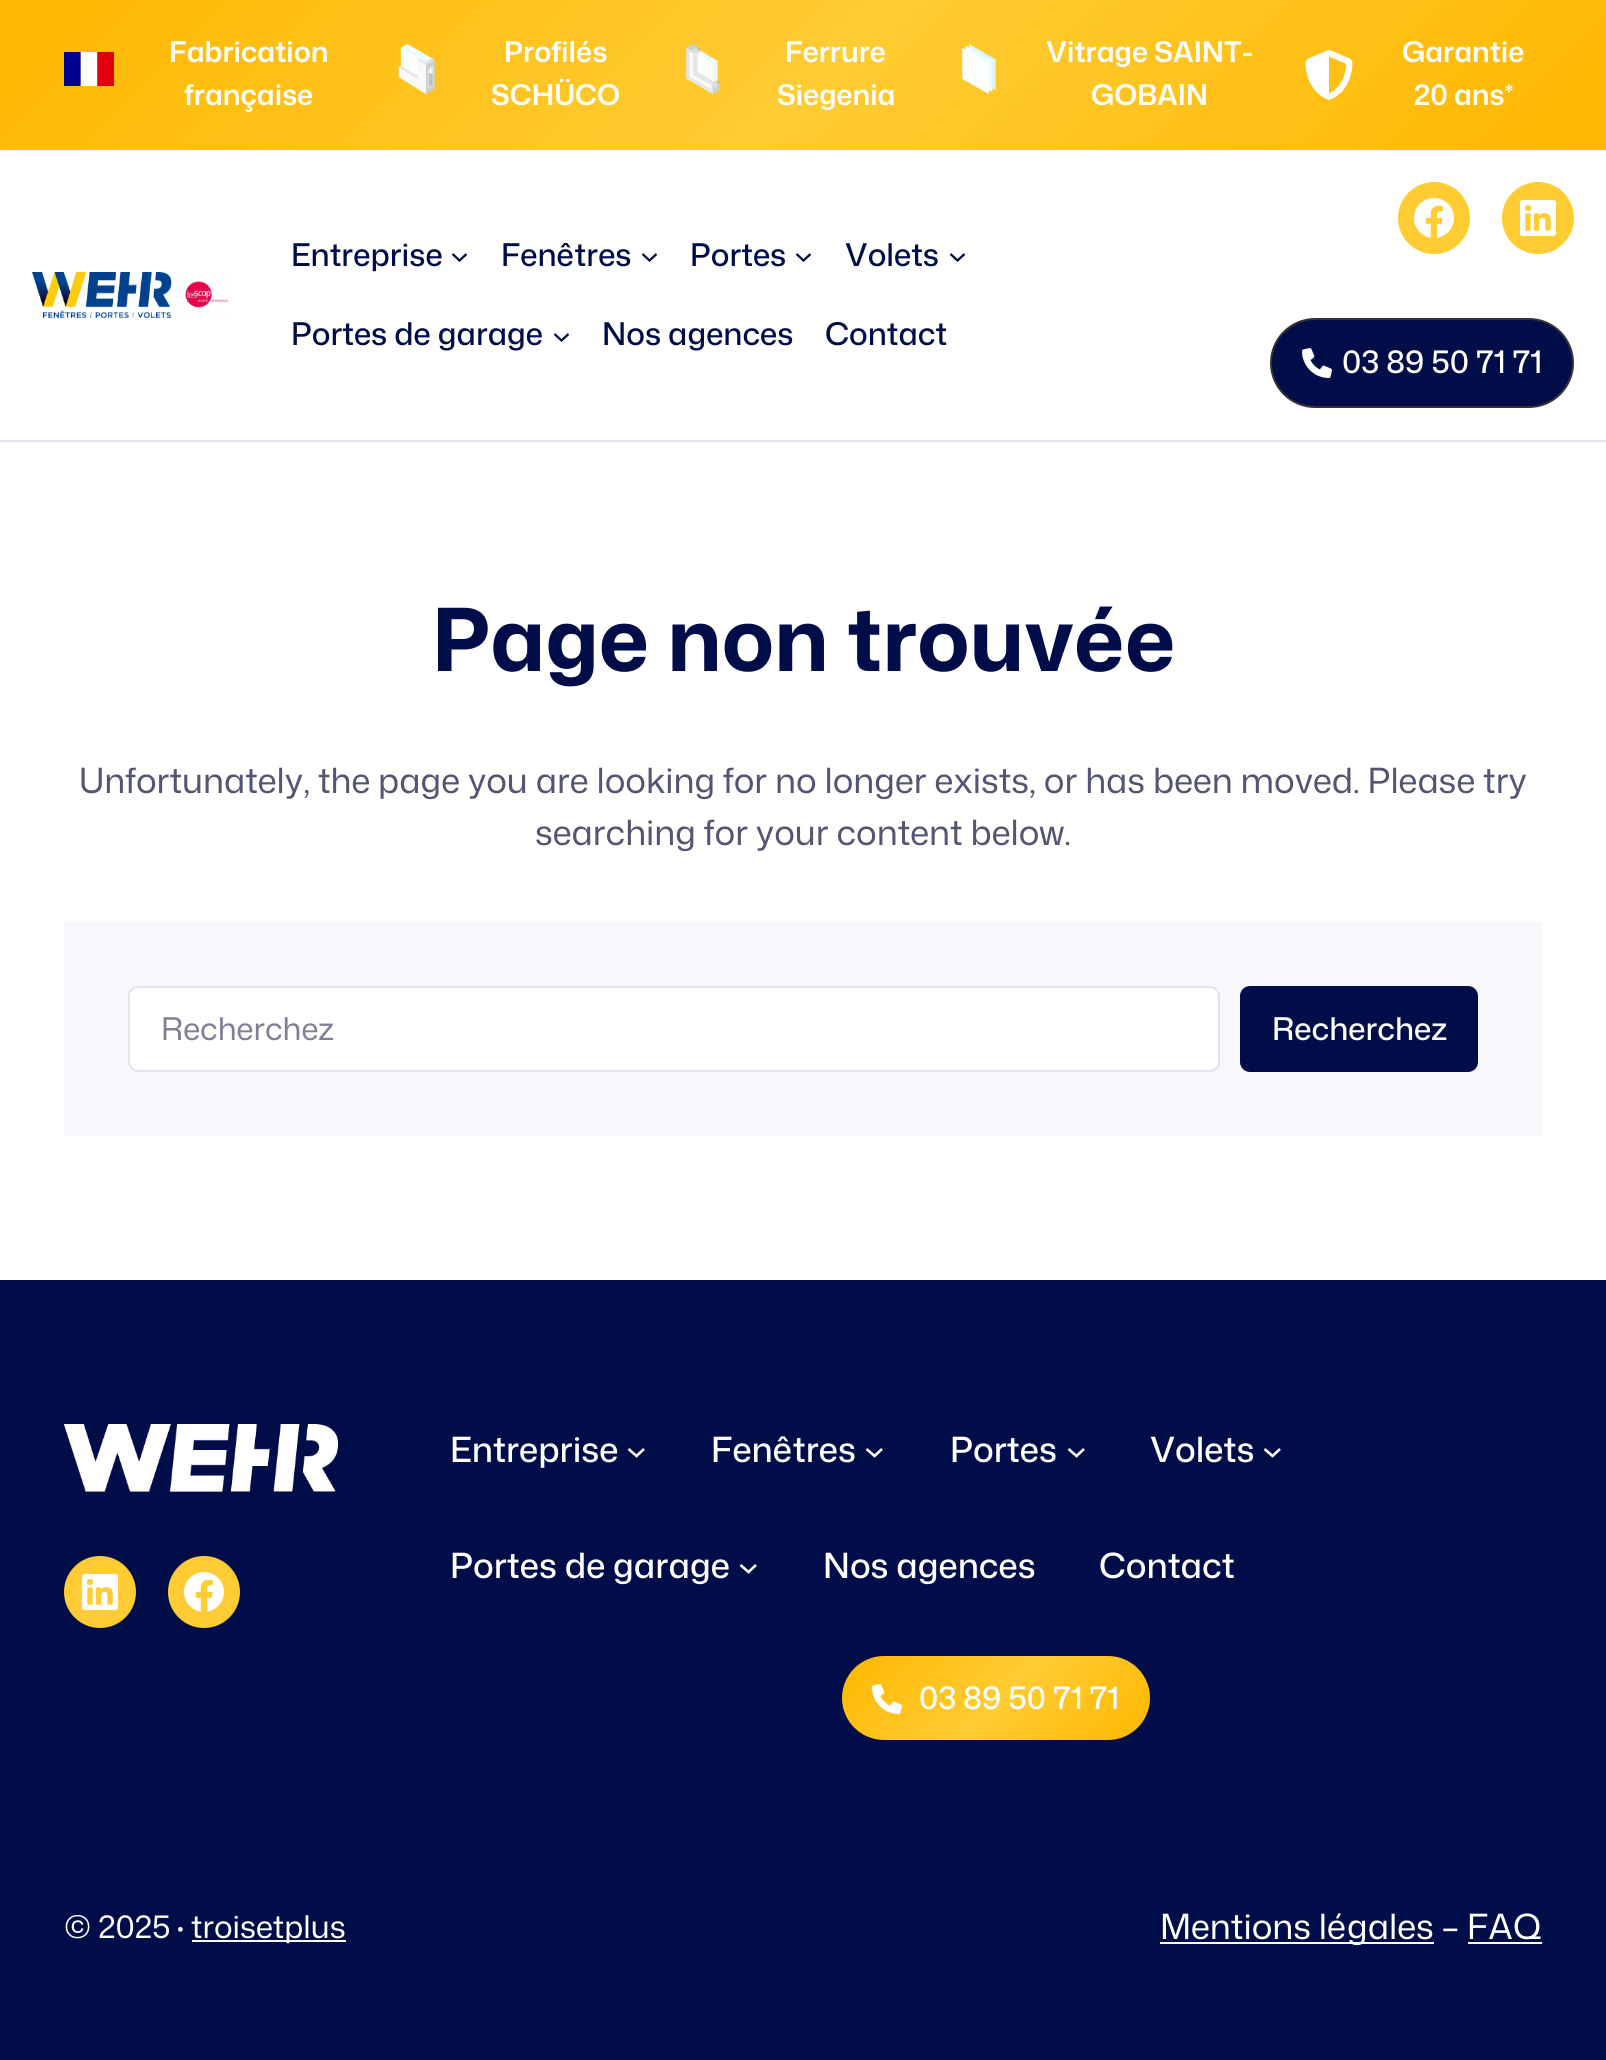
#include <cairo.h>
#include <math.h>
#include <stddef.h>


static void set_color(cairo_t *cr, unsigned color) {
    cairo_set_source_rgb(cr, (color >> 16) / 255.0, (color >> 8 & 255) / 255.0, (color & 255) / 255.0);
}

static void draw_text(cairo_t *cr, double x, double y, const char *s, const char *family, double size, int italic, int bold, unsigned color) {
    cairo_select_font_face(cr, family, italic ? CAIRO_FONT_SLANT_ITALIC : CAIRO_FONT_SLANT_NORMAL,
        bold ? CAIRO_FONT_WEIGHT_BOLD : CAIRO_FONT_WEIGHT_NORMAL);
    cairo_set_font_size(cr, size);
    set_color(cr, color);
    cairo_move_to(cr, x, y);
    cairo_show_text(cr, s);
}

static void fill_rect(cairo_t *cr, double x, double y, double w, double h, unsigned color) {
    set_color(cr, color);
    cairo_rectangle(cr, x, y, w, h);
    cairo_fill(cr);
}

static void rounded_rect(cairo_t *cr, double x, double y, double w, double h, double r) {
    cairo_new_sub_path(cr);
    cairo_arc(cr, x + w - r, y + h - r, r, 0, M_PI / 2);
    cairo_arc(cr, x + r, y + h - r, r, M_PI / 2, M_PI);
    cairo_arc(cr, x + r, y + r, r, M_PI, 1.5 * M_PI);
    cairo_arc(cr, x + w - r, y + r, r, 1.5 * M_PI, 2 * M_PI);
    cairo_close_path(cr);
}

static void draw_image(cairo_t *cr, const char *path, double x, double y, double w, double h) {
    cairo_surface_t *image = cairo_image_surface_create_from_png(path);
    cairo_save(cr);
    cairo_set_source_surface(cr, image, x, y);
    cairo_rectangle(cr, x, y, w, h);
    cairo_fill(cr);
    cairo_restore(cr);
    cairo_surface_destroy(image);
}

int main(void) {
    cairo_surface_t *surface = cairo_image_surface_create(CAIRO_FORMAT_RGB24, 1606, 2060);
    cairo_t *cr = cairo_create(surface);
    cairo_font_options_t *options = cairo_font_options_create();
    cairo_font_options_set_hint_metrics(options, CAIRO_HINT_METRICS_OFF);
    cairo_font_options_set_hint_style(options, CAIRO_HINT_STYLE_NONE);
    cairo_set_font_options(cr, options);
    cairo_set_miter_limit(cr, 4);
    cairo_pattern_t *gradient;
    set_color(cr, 0xFFFFFF);
    cairo_paint(cr);
    gradient = cairo_pattern_create_linear(364, -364, 1242, 514);
    cairo_pattern_add_color_stop_rgba(gradient, 0, 1, 0.718, 0, 1);
    cairo_pattern_add_color_stop_rgba(gradient, 0.51, 1, 0.8, 0.2, 1);
    cairo_pattern_add_color_stop_rgba(gradient, 1, 1, 0.718, 0, 1);
    cairo_set_source(cr, gradient);
    cairo_pattern_destroy(gradient);
    cairo_rectangle(cr, 0, 0, 1606, 150);
    cairo_fill(cr);
    draw_image(cr, "assets/img1.png", 64, 52, 50, 34);
    draw_text(cr, 169, 62, "Fabrication", "Mona Sans SemiBold", 28.5, 0, 0, 0xFFFFFF);
    draw_text(cr, 184, 105, "française", "Mona Sans SemiBold", 28.5, 0, 0, 0xFFFFFF);
    draw_image(cr, "assets/img2.png", 398, 44, 37, 50);
    draw_text(cr, 504, 62, "Profilés", "Mona Sans SemiBold", 28.5, 0, 0, 0xFFFFFF);
    draw_text(cr, 491, 105, "SCHÜCO", "Mona Sans SemiBold", 28.5, 0, 0, 0xFFFFFF);
    draw_image(cr, "assets/img3.png", 686, 44, 34, 50);
    draw_text(cr, 785, 62, "Ferrure", "Mona Sans SemiBold", 28.5, 0, 0, 0xFFFFFF);
    draw_text(cr, 777, 105, "Siegenia", "Mona Sans SemiBold", 28.5, 0, 0, 0xFFFFFF);
    draw_image(cr, "assets/img4.png", 962, 44, 34, 50);
    draw_text(cr, 1046, 62, "Vitrage SAINT-", "Mona Sans SemiBold", 28.5, 0, 0, 0xFFFFFF);
    draw_text(cr, 1091, 105, "GOBAIN", "Mona Sans SemiBold", 28.5, 0, 0, 0xFFFFFF);
    draw_image(cr, "assets/img5.png", 1305, 50, 48, 50);
    draw_text(cr, 1402, 62, "Garantie", "Mona Sans SemiBold", 28.5, 0, 0, 0xFFFFFF);
    draw_text(cr, 1414, 105, "20 ans*", "Mona Sans SemiBold", 28.5, 0, 0, 0xFFFFFF);
    fill_rect(cr, 0, 440, 1606, 2, 0xE3E3F0);
    draw_image(cr, "assets/img6.png", 32, 272, 196, 46);
    draw_text(cr, 291, 266, "Entreprise", "Mona Sans Medium", 31.25, 0, 0, 0x000D49);
    cairo_new_path(cr);
    cairo_move_to(cr, 452.5, 254);
    cairo_line_to(cr, 459.5, 260.5);
    cairo_line_to(cr, 466.5, 254);
    cairo_set_line_width(cr, 2.3);
    cairo_stroke(cr);
    draw_text(cr, 501, 266, "Fenêtres", "Mona Sans Medium", 31.25, 0, 0, 0x000D49);
    cairo_new_path(cr);
    cairo_move_to(cr, 642.5, 254);
    cairo_line_to(cr, 649.5, 260.5);
    cairo_line_to(cr, 656.5, 254);
    cairo_stroke(cr);
    draw_text(cr, 690, 266, "Portes", "Mona Sans Medium", 31.25, 0, 0, 0x000D49);
    cairo_new_path(cr);
    cairo_move_to(cr, 796.5, 254);
    cairo_line_to(cr, 803.5, 260.5);
    cairo_line_to(cr, 810.5, 254);
    cairo_stroke(cr);
    draw_text(cr, 845, 266, "Volets", "Mona Sans Medium", 31.25, 0, 0, 0x000D49);
    cairo_new_path(cr);
    cairo_move_to(cr, 950.5, 254);
    cairo_line_to(cr, 957.5, 260.5);
    cairo_line_to(cr, 964.5, 254);
    cairo_stroke(cr);
    draw_text(cr, 291, 345, "Portes de garage", "Mona Sans Medium", 31.25, 0, 0, 0x000D49);
    cairo_new_path(cr);
    cairo_move_to(cr, 554.5, 334);
    cairo_line_to(cr, 561.5, 340.5);
    cairo_line_to(cr, 568.5, 334);
    cairo_stroke(cr);
    draw_text(cr, 602, 345, "Nos agences", "Mona Sans Medium", 31.25, 0, 0, 0x000D49);
    draw_text(cr, 825, 345, "Contact", "Mona Sans Medium", 31.25, 0, 0, 0x000D49);
    set_color(cr, 0xFFCC33);
    cairo_new_path(cr);
    cairo_arc(cr, 1434, 218, 36, 0, 2 * M_PI);
    cairo_fill(cr);
    draw_image(cr, "assets/img7.png", 1414, 198, 40, 40);
    cairo_arc(cr, 1538, 218, 36, 0, 2 * M_PI);
    cairo_fill(cr);
    draw_image(cr, "assets/img8.png", 1520, 200, 36, 36);
    set_color(cr, 0x000D49);
    rounded_rect(cr, 1271, 319, 302, 88, 44);
    cairo_fill_preserve(cr);
    set_color(cr, 0x333333);
    cairo_set_line_width(cr, 2);
    cairo_stroke(cr);
    draw_image(cr, "assets/img9.png", 1302, 348, 30, 30);
    draw_text(cr, 1342, 373, "03 89 50 71 71", "Mona Sans Medium", 31.25, 0, 0, 0xFFFFFF);
    draw_text(cr, 432, 671, "Page non trouvée", "Mona Sans", 86.75, 0, 1, 0x000D49);
    draw_text(cr, 79, 793, "Unfortunately, the page you are looking for no longer exists, or has been moved. Please try", "Mona Sans", 34.7, 0, 0, 0x545473);
    draw_text(cr, 535, 845, "searching for your content below.", "Mona Sans", 34.7, 0, 0, 0x545473);
    fill_rect(cr, 64, 922, 1478, 214, 0xF8F7FC);
    set_color(cr, 0xFFFFFF);
    rounded_rect(cr, 129, 987, 1090, 84, 9);
    cairo_fill_preserve(cr);
    set_color(cr, 0xE3E3F0);
    cairo_stroke(cr);
    draw_text(cr, 161, 1040, "Recherchez", "Mona Sans", 31.25, 0, 0, 0x7F7F96);
    set_color(cr, 0x000D49);
    rounded_rect(cr, 1240, 986, 238, 86, 10);
    cairo_fill(cr);
    draw_text(cr, 1272, 1040, "Recherchez", "Mona Sans Medium", 31.25, 0, 0, 0xFFFFFF);
    fill_rect(cr, 0, 1280, 1606, 780, 0x000D49);
    draw_image(cr, "assets/img10.png", 64, 1424, 274, 68);
    set_color(cr, 0xFFCC33);
    cairo_arc(cr, 100, 1592, 36, 0, 2 * M_PI);
    cairo_fill(cr);
    draw_image(cr, "assets/img8.png", 82, 1574, 36, 36);
    cairo_arc(cr, 204, 1592, 36, 0, 2 * M_PI);
    cairo_fill(cr);
    draw_image(cr, "assets/img7.png", 184, 1572, 40, 40);
    draw_text(cr, 450, 1462, "Entreprise", "Mona Sans Medium", 34.7, 0, 0, 0xFFFFFF);
    cairo_new_path(cr);
    cairo_move_to(cr, 628.5, 1449);
    cairo_line_to(cr, 636.5, 1456);
    cairo_line_to(cr, 644, 1449);
    cairo_set_line_width(cr, 2.6);
    cairo_stroke(cr);
    draw_text(cr, 711, 1462, "Fenêtres", "Mona Sans Medium", 34.7, 0, 0, 0xFFFFFF);
    cairo_new_path(cr);
    cairo_move_to(cr, 866.5, 1449);
    cairo_line_to(cr, 874.5, 1456);
    cairo_line_to(cr, 882, 1449);
    cairo_stroke(cr);
    draw_text(cr, 950, 1462, "Portes", "Mona Sans Medium", 34.7, 0, 0, 0xFFFFFF);
    cairo_new_path(cr);
    cairo_move_to(cr, 1068.5, 1449);
    cairo_line_to(cr, 1076.5, 1456);
    cairo_line_to(cr, 1084, 1449);
    cairo_stroke(cr);
    draw_text(cr, 1150, 1462, "Volets", "Mona Sans Medium", 34.7, 0, 0, 0xFFFFFF);
    cairo_new_path(cr);
    cairo_move_to(cr, 1264.5, 1449);
    cairo_line_to(cr, 1272.5, 1456);
    cairo_line_to(cr, 1280, 1449);
    cairo_stroke(cr);
    draw_text(cr, 450, 1578, "Portes de garage", "Mona Sans Medium", 34.7, 0, 0, 0xFFFFFF);
    cairo_new_path(cr);
    cairo_move_to(cr, 740.5, 1565);
    cairo_line_to(cr, 748.5, 1572);
    cairo_line_to(cr, 756, 1565);
    cairo_stroke(cr);
    draw_text(cr, 823, 1578, "Nos agences", "Mona Sans Medium", 34.7, 0, 0, 0xFFFFFF);
    draw_text(cr, 1099, 1578, "Contact", "Mona Sans Medium", 34.7, 0, 0, 0xFFFFFF);
    gradient = cairo_pattern_create_linear(898, 1600, 1094, 1796);
    cairo_pattern_add_color_stop_rgba(gradient, 0, 1, 0.718, 0, 1);
    cairo_pattern_add_color_stop_rgba(gradient, 0.51, 1, 0.8, 0.2, 1);
    cairo_pattern_add_color_stop_rgba(gradient, 1, 1, 0.718, 0, 1);
    cairo_set_source(cr, gradient);
    cairo_pattern_destroy(gradient);
    rounded_rect(cr, 842, 1656, 308, 84, 42);
    cairo_fill(cr);
    draw_image(cr, "assets/img11.png", 872, 1684, 30, 30);
    draw_text(cr, 919, 1709, "03 89 50 71 71", "Mona Sans Medium", 31.25, 0, 0, 0xFFFFFF);
    draw_text(cr, 64, 1938, "© 2025", "Mona Sans", 31.25, 0, 0, 0xFFFFFF);
    draw_text(cr, 177, 1938, "·", "Mona Sans SemiBold", 31.25, 0, 0, 0xFFFFFF);
    fill_rect(cr, 192, 1940, 154, 2, 0xFFFFFF);
    draw_text(cr, 191, 1938, "troisetplus", "Mona Sans", 31.25, 0, 0, 0xFFFFFF);
    fill_rect(cr, 1160, 1942, 274, 2, 0xFFFFFF);
    draw_text(cr, 1160, 1939, "Mentions légales – FAQ", "Mona Sans", 34.7, 0, 0, 0xFFFFFF);
    fill_rect(cr, 1468, 1942, 74, 2, 0xFFFFFF);
    cairo_surface_write_to_png(surface, "output.png");
    cairo_font_options_destroy(options);
    cairo_destroy(cr);
    cairo_surface_destroy(surface);
    return 0;
}
